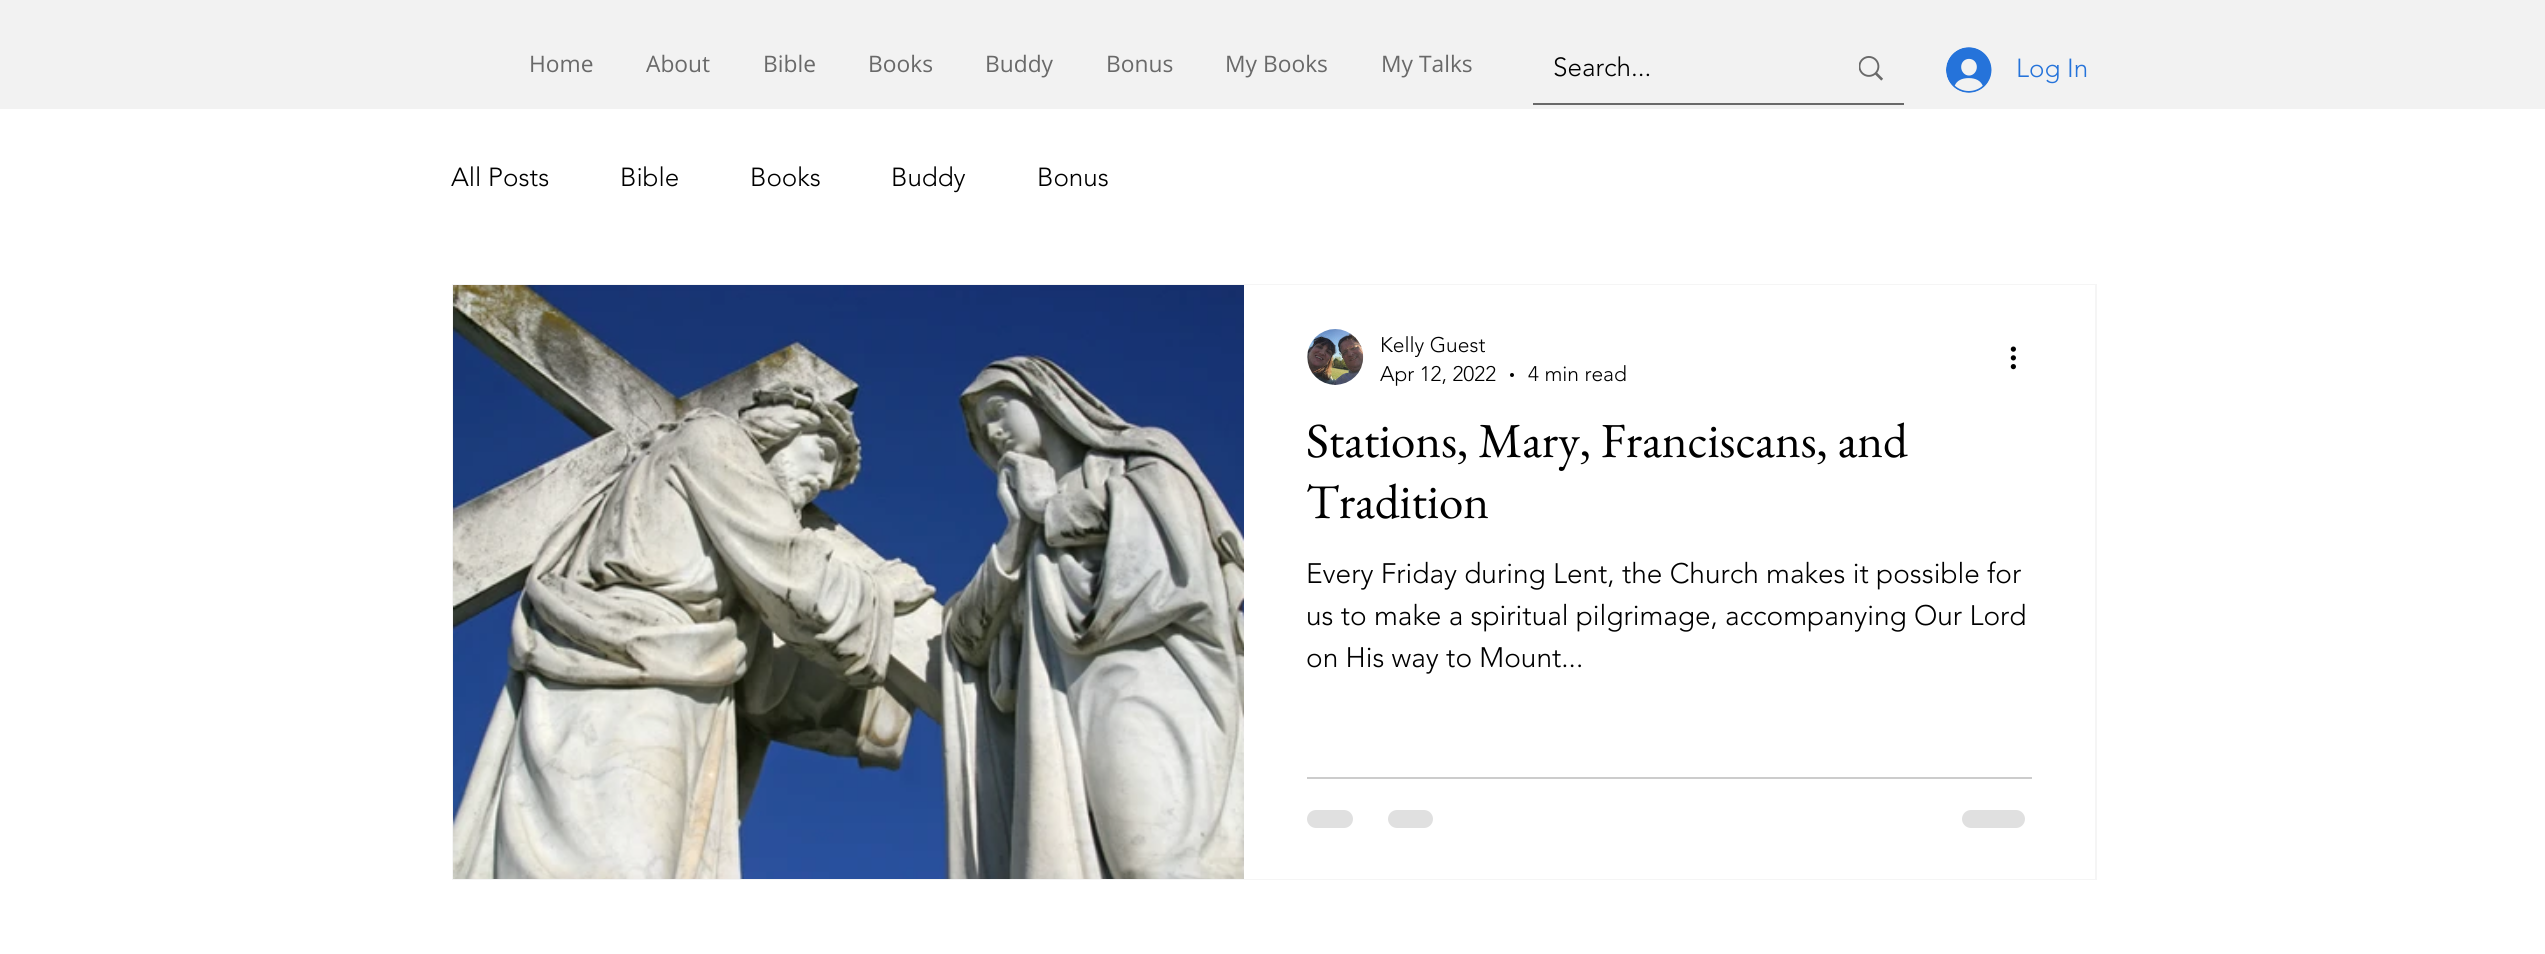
#include <cairo.h>
#include <math.h>
#include <stddef.h>


static void set_color(cairo_t *cr, unsigned color) {
    cairo_set_source_rgb(cr, (color >> 16) / 255.0, (color >> 8 & 255) / 255.0, (color & 255) / 255.0);
}

static void draw_text(cairo_t *cr, double x, double y, const char *s, const char *family, double size, int italic, int bold, unsigned color) {
    cairo_select_font_face(cr, family, italic ? CAIRO_FONT_SLANT_ITALIC : CAIRO_FONT_SLANT_NORMAL,
        bold ? CAIRO_FONT_WEIGHT_BOLD : CAIRO_FONT_WEIGHT_NORMAL);
    cairo_set_font_size(cr, size);
    set_color(cr, color);
    cairo_move_to(cr, x, y);
    cairo_show_text(cr, s);
}

static void fill_rect(cairo_t *cr, double x, double y, double w, double h, unsigned color) {
    set_color(cr, color);
    cairo_rectangle(cr, x, y, w, h);
    cairo_fill(cr);
}

static void rounded_rect(cairo_t *cr, double x, double y, double w, double h, double r) {
    cairo_new_sub_path(cr);
    cairo_arc(cr, x + w - r, y + h - r, r, 0, M_PI / 2);
    cairo_arc(cr, x + r, y + h - r, r, M_PI / 2, M_PI);
    cairo_arc(cr, x + r, y + r, r, M_PI, 1.5 * M_PI);
    cairo_arc(cr, x + w - r, y + r, r, 1.5 * M_PI, 2 * M_PI);
    cairo_close_path(cr);
}

static void draw_image(cairo_t *cr, const char *path, double x, double y, double w, double h) {
    cairo_surface_t *image = cairo_image_surface_create_from_png(path);
    cairo_save(cr);
    cairo_set_source_surface(cr, image, x, y);
    cairo_rectangle(cr, x, y, w, h);
    cairo_fill(cr);
    cairo_restore(cr);
    cairo_surface_destroy(image);
}

int main(void) {
    cairo_surface_t *surface = cairo_image_surface_create(CAIRO_FORMAT_RGB24, 2545, 954);
    cairo_t *cr = cairo_create(surface);
    cairo_font_options_t *options = cairo_font_options_create();
    cairo_font_options_set_hint_metrics(options, CAIRO_HINT_METRICS_OFF);
    cairo_font_options_set_hint_style(options, CAIRO_HINT_STYLE_NONE);
    cairo_set_font_options(cr, options);
    cairo_set_miter_limit(cr, 4);
    set_color(cr, 0xFFFFFF);
    cairo_paint(cr);
    fill_rect(cr, 0, 0, 2545, 109, 0xF2F2F2);
    draw_text(cr, 529, 72, "Home", "Open Sans", 22.75, 0, 0, 0x696969);
    draw_text(cr, 646, 72, "About", "Open Sans", 22.75, 0, 0, 0x696969);
    draw_text(cr, 763, 72, "Bible", "Open Sans", 22.75, 0, 0, 0x696969);
    draw_text(cr, 868, 72, "Books", "Open Sans", 22.75, 0, 0, 0x696969);
    draw_text(cr, 985, 72, "Buddy", "Open Sans", 22.75, 0, 0, 0x696969);
    draw_text(cr, 1106, 72, "Bonus", "Open Sans", 22.75, 0, 0, 0x696969);
    draw_text(cr, 1225, 72, "My Books", "Open Sans", 22.75, 0, 0, 0x696969);
    draw_text(cr, 1381, 72, "My Talks", "Open Sans", 22.75, 0, 0, 0x696969);
    fill_rect(cr, 1533, 103, 371, 2, 0x696969);
    draw_text(cr, 1553, 76, "Search...", "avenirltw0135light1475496 Light", 26, 0, 0, 0x000000);
    draw_image(cr, "assets/img1.png", 1859, 56, 24, 25);
    draw_image(cr, "assets/img2.png", 1946, 47, 46, 46);
    draw_text(cr, 2016, 77, "Log In", "avenirltw0135light1475496 Light", 26, 0, 0, 0x2573DA);
    draw_text(cr, 451, 186, "All Posts", "avenirltw0135light1475496 Light", 26, 0, 0, 0x000000);
    draw_text(cr, 620, 186, "Bible", "avenirltw0135light1475496 Light", 26, 0, 0, 0x000000);
    draw_text(cr, 750, 186, "Books", "avenirltw0135light1475496 Light", 26, 0, 0, 0x000000);
    draw_text(cr, 891, 186, "Buddy", "avenirltw0135light1475496 Light", 26, 0, 0, 0x000000);
    draw_text(cr, 1037, 186, "Bonus", "avenirltw0135light1475496 Light", 26, 0, 0, 0x000000);
    cairo_rectangle(cr, 453, 285, 1643, 594);
    set_color(cr, 0xF5F5F5);
    cairo_stroke(cr);
    draw_image(cr, "assets/img3.png", 453, 285, 791, 594);
    fill_rect(cr, 1244, 285, 851, 594, 0xFFFFFF);
    draw_image(cr, "assets/img4.png", 1307, 329, 57, 56);
    draw_text(cr, 1380, 352, "Kelly Guest", "avenirltw0135light1475496 Light", 21, 0, 0, 0x000000);
    draw_text(cr, 1380, 381, "Apr 12, 2022", "avenirltw0135light1475496 Light", 21, 0, 0, 0x000000);
    cairo_new_path(cr);
    cairo_arc(cr, 1512, 375, 2, 0, 2 * M_PI);
    cairo_fill(cr);
    draw_text(cr, 1528, 381, "4 min read", "avenirltw0135light1475496 Light", 21, 0, 0, 0x000000);
    draw_image(cr, "assets/img5.png", 2010, 346, 6, 24);
    draw_text(cr, 1306, 457, "Stations, Mary, Franciscans, and", "EB Garamond", 49, 0, 0, 0x000000);
    draw_text(cr, 1306, 518, "Tradition", "EB Garamond", 49, 0, 0, 0x000000);
    draw_text(cr, 1306, 583, "Every Friday during Lent, the Church makes it possible for", "avenirltw0135light1475496 Light", 28, 0, 0, 0x000000);
    draw_text(cr, 1306, 625, "us to make a spiritual pilgrimage, accompanying Our Lord", "avenirltw0135light1475496 Light", 28, 0, 0, 0x000000);
    draw_text(cr, 1306, 667, "on His way to Mount...", "avenirltw0135light1475496 Light", 28, 0, 0, 0x000000);
    fill_rect(cr, 1307, 777, 725, 2, 0xCCCCCC);
    set_color(cr, 0xE0E0E0);
    rounded_rect(cr, 1307, 810, 46, 18, 9);
    cairo_fill(cr);
    rounded_rect(cr, 1388, 810, 45, 18, 9);
    cairo_fill(cr);
    rounded_rect(cr, 1962, 810, 63, 18, 9);
    cairo_fill(cr);
    cairo_surface_write_to_png(surface, "output.png");
    cairo_font_options_destroy(options);
    cairo_destroy(cr);
    cairo_surface_destroy(surface);
    return 0;
}
